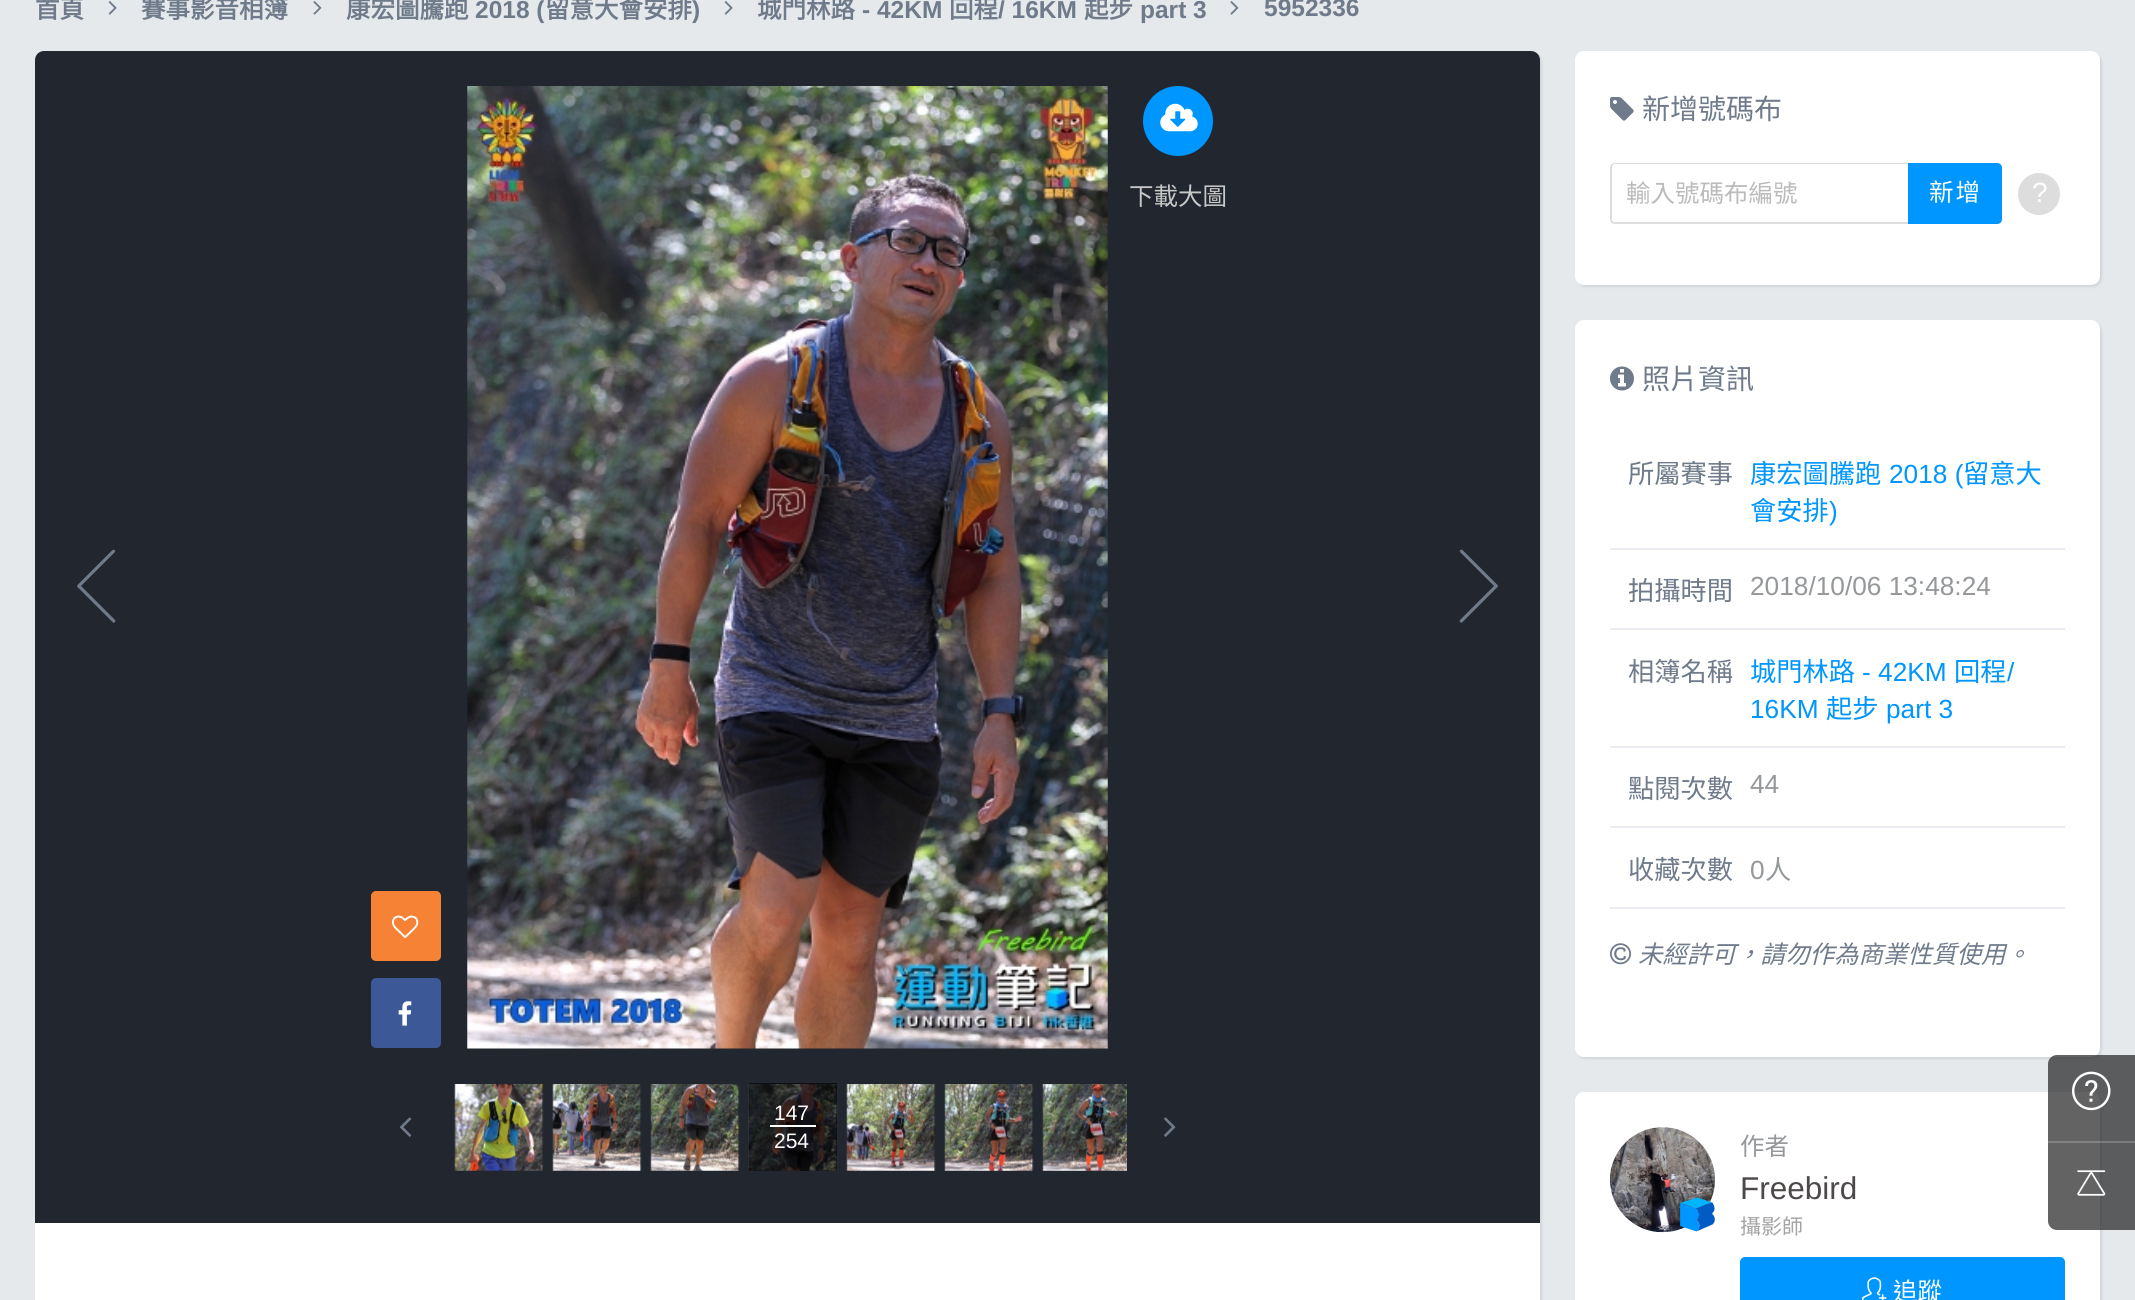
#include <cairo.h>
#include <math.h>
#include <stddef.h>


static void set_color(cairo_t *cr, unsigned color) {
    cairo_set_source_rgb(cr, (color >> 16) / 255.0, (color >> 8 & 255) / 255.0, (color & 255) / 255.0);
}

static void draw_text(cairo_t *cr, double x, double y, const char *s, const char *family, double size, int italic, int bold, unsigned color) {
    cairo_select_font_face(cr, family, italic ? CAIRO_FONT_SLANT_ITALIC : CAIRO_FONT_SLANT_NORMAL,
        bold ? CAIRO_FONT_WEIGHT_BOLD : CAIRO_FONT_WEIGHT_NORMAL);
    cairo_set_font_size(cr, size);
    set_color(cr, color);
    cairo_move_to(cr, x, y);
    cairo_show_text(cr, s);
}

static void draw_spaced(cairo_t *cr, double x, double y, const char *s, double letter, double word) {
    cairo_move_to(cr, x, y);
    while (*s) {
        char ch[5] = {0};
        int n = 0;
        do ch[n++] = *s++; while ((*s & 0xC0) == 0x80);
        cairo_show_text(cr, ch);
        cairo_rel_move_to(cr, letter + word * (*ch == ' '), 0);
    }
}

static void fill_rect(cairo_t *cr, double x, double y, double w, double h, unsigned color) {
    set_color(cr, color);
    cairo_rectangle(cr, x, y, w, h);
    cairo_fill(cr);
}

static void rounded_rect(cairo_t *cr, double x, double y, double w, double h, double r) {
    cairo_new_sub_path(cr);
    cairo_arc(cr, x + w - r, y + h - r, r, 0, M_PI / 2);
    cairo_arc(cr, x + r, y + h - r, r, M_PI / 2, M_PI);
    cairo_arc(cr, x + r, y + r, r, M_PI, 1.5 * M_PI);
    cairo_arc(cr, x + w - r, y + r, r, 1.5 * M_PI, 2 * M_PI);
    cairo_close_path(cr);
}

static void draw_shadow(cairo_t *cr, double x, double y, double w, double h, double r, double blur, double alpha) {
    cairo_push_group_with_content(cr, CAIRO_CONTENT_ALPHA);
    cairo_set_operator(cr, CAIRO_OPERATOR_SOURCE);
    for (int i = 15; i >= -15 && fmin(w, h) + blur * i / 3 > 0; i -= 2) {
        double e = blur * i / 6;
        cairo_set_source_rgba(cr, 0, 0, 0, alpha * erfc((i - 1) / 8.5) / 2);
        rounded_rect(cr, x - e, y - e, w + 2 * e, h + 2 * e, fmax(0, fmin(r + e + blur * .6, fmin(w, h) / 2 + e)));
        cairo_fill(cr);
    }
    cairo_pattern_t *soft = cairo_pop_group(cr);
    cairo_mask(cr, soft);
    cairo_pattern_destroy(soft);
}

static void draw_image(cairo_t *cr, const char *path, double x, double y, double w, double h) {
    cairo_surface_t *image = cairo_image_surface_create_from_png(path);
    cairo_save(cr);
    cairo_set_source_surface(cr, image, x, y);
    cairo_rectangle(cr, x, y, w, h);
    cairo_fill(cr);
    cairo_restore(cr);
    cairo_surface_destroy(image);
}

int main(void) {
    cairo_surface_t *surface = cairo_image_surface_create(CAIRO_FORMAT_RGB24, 2135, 1300);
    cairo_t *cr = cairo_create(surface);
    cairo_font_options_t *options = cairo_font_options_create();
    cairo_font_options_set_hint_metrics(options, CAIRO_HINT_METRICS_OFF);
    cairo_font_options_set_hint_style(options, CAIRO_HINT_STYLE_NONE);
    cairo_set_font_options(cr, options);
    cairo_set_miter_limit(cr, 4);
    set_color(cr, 0xE5E9EC);
    cairo_paint(cr);
    draw_text(cr, 35, 18, "首頁", "Noto Sans CJK TC", 24.5, 0, 1, 0x6F7B8A);
    draw_image(cr, "assets/img1.png", 108, 1, 9, 14);
    draw_text(cr, 141, 18, "賽事影音相簿", "Noto Sans CJK TC", 24.5, 0, 1, 0x6F7B8A);
    draw_image(cr, "assets/img2.png", 313, 1, 9, 14);
    draw_text(cr, 346, 18, "康宏圖騰跑", "Noto Sans CJK TC", 24.5, 0, 1, 0x6F7B8A);
    draw_text(cr, 475, 18, "2018 (", "Liberation Sans", 24.5, 0, 1, 0x6F7B8A);
    draw_text(cr, 545, 18, "留意大會安排", "Noto Sans CJK TC", 24.5, 0, 1, 0x6F7B8A);
    draw_text(cr, 692, 18, ")", "Liberation Sans", 24.5, 0, 1, 0x6F7B8A);
    draw_image(cr, "assets/img1.png", 724, 1, 9, 14);
    draw_text(cr, 757, 18, "城門林路", "Noto Sans CJK TC", 24.5, 0, 1, 0x6F7B8A);
    draw_text(cr, 862, 18, "- 42KM", "Liberation Sans", 24.5, 0, 1, 0x6F7B8A);
    draw_text(cr, 949, 18, "回程", "Noto Sans CJK TC", 24.5, 0, 1, 0x6F7B8A);
    draw_text(cr, 998, 18, "/ 16KM", "Liberation Sans", 24.5, 0, 1, 0x6F7B8A);
    draw_text(cr, 1084, 18, "起步", "Noto Sans CJK TC", 24.5, 0, 1, 0x6F7B8A);
    draw_text(cr, 1140, 18, "part 3", "Liberation Sans", 24.5, 0, 1, 0x6F7B8A);
    draw_image(cr, "assets/img2.png", 1230, 1, 9, 14);
    draw_text(cr, 1264, 16, "5952336", "Liberation Sans", 24.5, 0, 1, 0x6F7B8A);
    set_color(cr, 0x22262E);
    draw_shadow(cr, 37, 53, 1505, 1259, 9, 1, 0.1);
    set_color(cr, 0xFFFFFF);
    rounded_rect(cr, 35, 51, 1505, 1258, 9);
    cairo_fill(cr);
    set_color(cr, 0x22262E);
    cairo_new_path(cr);
    cairo_move_to(cr, 44, 51);
    cairo_line_to(cr, 1531, 51);
    cairo_curve_to(cr, 1536, 51, 1540, 55, 1540, 60);
    cairo_line_to(cr, 1540, 1223);
    cairo_line_to(cr, 35, 1223);
    cairo_line_to(cr, 35, 60);
    cairo_curve_to(cr, 35, 55, 39, 51, 44, 51);
    cairo_close_path(cr);
    cairo_fill(cr);
    fill_rect(cr, 749, 1083, 88, 88, 0x0E0F12);
    draw_image(cr, "assets/img3.png", 467, 86, 641, 963);
    set_color(cr, 0x0096FF);
    cairo_arc(cr, 1178, 121, 35, 0, 2 * M_PI);
    cairo_fill(cr);
    draw_image(cr, "assets/img4.png", 1160, 103, 38, 29);
    draw_text(cr, 1129, 205, "下載大圖", "Noto Sans CJK TC", 24.5, 0, 0, 0xC8C8C8);
    set_color(cr, 0xF68236);
    rounded_rect(cr, 372, 892, 68, 68, 4);
    cairo_fill_preserve(cr);
    cairo_stroke(cr);
    draw_image(cr, "assets/img5.png", 392, 915, 27, 24);
    set_color(cr, 0x3C5897);
    rounded_rect(cr, 372, 979, 68, 68, 4);
    cairo_fill_preserve(cr);
    cairo_stroke(cr);
    draw_image(cr, "assets/img6.png", 398, 1001, 14, 25);
    set_color(cr, 0x6F7B8A);
    cairo_new_path(cr);
    cairo_move_to(cr, 112.5, 550);
    cairo_line_to(cr, 77.5, 585);
    cairo_line_to(cr, 77.5, 586.5);
    cairo_curve_to(cr, 77.5, 587.5, 78.5, 588, 79.5, 587.5);
    cairo_line_to(cr, 115, 552);
    cairo_curve_to(cr, 116, 550.5, 113.5, 549, 112.5, 550);
    cairo_close_path(cr);
    cairo_fill(cr);
    cairo_new_path(cr);
    cairo_move_to(cr, 115, 620);
    cairo_line_to(cr, 80, 585);
    cairo_line_to(cr, 78.5, 585);
    cairo_curve_to(cr, 77.5, 585, 77, 586, 77.5, 587);
    cairo_line_to(cr, 113, 622.5);
    cairo_curve_to(cr, 114.5, 623.5, 116, 621, 115, 620);
    cairo_close_path(cr);
    cairo_fill(cr);
    cairo_new_path(cr);
    cairo_move_to(cr, 1462.5, 550);
    cairo_line_to(cr, 1497.5, 585);
    cairo_line_to(cr, 1497.5, 586.5);
    cairo_curve_to(cr, 1497.5, 587.5, 1496.5, 588, 1495.5, 587.5);
    cairo_line_to(cr, 1460, 552);
    cairo_curve_to(cr, 1459, 550.5, 1461.5, 549, 1462.5, 550);
    cairo_close_path(cr);
    cairo_fill(cr);
    cairo_new_path(cr);
    cairo_move_to(cr, 1460, 620);
    cairo_line_to(cr, 1495, 585);
    cairo_line_to(cr, 1496.5, 585);
    cairo_curve_to(cr, 1497.5, 585, 1498, 586, 1497.5, 587);
    cairo_line_to(cr, 1462, 622.5);
    cairo_curve_to(cr, 1460.5, 623.5, 1459, 621, 1460, 620);
    cairo_close_path(cr);
    cairo_fill(cr);
    draw_image(cr, "assets/img7.png", 400, 1117, 12, 20);
    draw_image(cr, "assets/img8.png", 454, 1084, 90, 87);
    draw_image(cr, "assets/img9.png", 552, 1084, 90, 87);
    draw_image(cr, "assets/img10.png", 650, 1084, 90, 87);
    draw_image(cr, "assets/img11.png", 748, 1084, 90, 87);
    draw_text(cr, 774, 1120, "147", "Liberation Sans", 21, 0, 0, 0xFFFFFF);
    fill_rect(cr, 770, 1125, 46, 2, 0xFFFFFF);
    draw_text(cr, 774, 1148, "254", "Liberation Sans", 21, 0, 0, 0xFFFFFF);
    draw_image(cr, "assets/img12.png", 846, 1084, 90, 87);
    draw_image(cr, "assets/img13.png", 944, 1084, 90, 87);
    draw_image(cr, "assets/img14.png", 1042, 1084, 85, 87);
    draw_image(cr, "assets/img15.png", 1164, 1117, 12, 20);
    set_color(cr, 0x22262E);
    draw_shadow(cr, 1577, 53, 525, 234, 9, 1, 0.1);
    set_color(cr, 0xFFFFFF);
    rounded_rect(cr, 1575, 51, 525, 234, 9);
    cairo_fill(cr);
    draw_image(cr, "assets/img16.png", 1610, 97, 24, 24);
    draw_text(cr, 1642, 119, "新增號碼布", "Noto Sans CJK TC", 28, 0, 0, 0x6F7B8A);
    set_color(cr, 0xDDDDDD);
    cairo_set_fill_rule(cr, CAIRO_FILL_RULE_EVEN_ODD);
    cairo_new_path(cr);
    cairo_move_to(cr, 1615, 163);
    cairo_line_to(cr, 1908, 163);
    cairo_line_to(cr, 1908, 224);
    cairo_line_to(cr, 1615, 224);
    cairo_curve_to(cr, 1612, 224, 1610, 222, 1610, 219);
    cairo_line_to(cr, 1610, 168);
    cairo_curve_to(cr, 1610, 165, 1612, 163, 1615, 163);
    cairo_close_path(cr);
    cairo_move_to(cr, 1615, 164);
    cairo_line_to(cr, 1908, 164);
    cairo_line_to(cr, 1908, 222);
    cairo_line_to(cr, 1615, 222);
    cairo_curve_to(cr, 1613, 222, 1612, 221, 1612, 219);
    cairo_line_to(cr, 1612, 168);
    cairo_curve_to(cr, 1612, 166, 1613, 164, 1615, 164);
    cairo_close_path(cr);
    cairo_fill(cr);
    draw_text(cr, 1626, 202, "輸入號碼布編號", "Noto Sans CJK TC", 24.5, 0, 0, 0xBBBBBB);
    set_color(cr, 0x0096FF);
    cairo_new_path(cr);
    cairo_move_to(cr, 1908, 163);
    cairo_line_to(cr, 1997, 163);
    cairo_curve_to(cr, 2000, 163, 2002, 165, 2002, 168);
    cairo_line_to(cr, 2002, 219);
    cairo_curve_to(cr, 2002, 222, 2000, 224, 1997, 224);
    cairo_line_to(cr, 1908, 224);
    cairo_close_path(cr);
    cairo_fill(cr);
    set_color(cr, 0xFFFFFF);
    draw_spaced(cr, 1929, 201, "新增", 2, 0);
    set_color(cr, 0xDDDDDD);
    cairo_new_path(cr);
    cairo_arc(cr, 2039, 194, 21, 0, 2 * M_PI);
    cairo_fill(cr);
    draw_text(cr, 2032, 202, "?", "Liberation Sans", 28, 0, 0, 0xFFFFFF);
    set_color(cr, 0x22262E);
    draw_shadow(cr, 1577, 322, 525, 737, 9, 1, 0.1);
    set_color(cr, 0xFFFFFF);
    rounded_rect(cr, 1575, 320, 525, 737, 9);
    cairo_fill(cr);
    draw_image(cr, "assets/img17.png", 1610, 366, 24, 25);
    draw_text(cr, 1642, 389, "照片資訊", "Noto Sans CJK TC", 28, 0, 0, 0x6F7B8A);
    fill_rect(cr, 1610, 548, 455, 2, 0xEAECF1);
    draw_text(cr, 1628, 483, "所屬賽事", "Noto Sans CJK TC", 26.25, 0, 0, 0x6F7B8A);
    draw_text(cr, 1750, 483, "康宏圖騰跑", "Noto Sans CJK TC", 26.25, 0, 0, 0x0096FF);
    draw_text(cr, 1889, 483, "2018 (", "Liberation Sans", 26.25, 0, 0, 0x0096FF);
    draw_text(cr, 1963, 483, "留意大", "Noto Sans CJK TC", 26.25, 0, 0, 0x0096FF);
    draw_text(cr, 1750, 520, "會安排", "Noto Sans CJK TC", 26.25, 0, 0, 0x0096FF);
    draw_text(cr, 1829, 520, ")", "Liberation Sans", 26.25, 0, 0, 0x0096FF);
    fill_rect(cr, 1610, 628, 455, 2, 0xEAECF1);
    draw_text(cr, 1628, 600, "拍攝時間", "Noto Sans CJK TC", 26.25, 0, 0, 0x6F7B8A);
    draw_text(cr, 1750, 595, "2018/10/06 13:48:24", "Liberation Sans", 26.25, 0, 0, 0x95989A);
    fill_rect(cr, 1610, 746, 455, 2, 0xEAECF1);
    draw_text(cr, 1628, 681, "相簿名稱", "Noto Sans CJK TC", 26.25, 0, 0, 0x6F7B8A);
    draw_text(cr, 1750, 681, "城門林路", "Noto Sans CJK TC", 26.25, 0, 0, 0x0096FF);
    draw_text(cr, 1862, 681, "- 42KM", "Liberation Sans", 26.25, 0, 0, 0x0096FF);
    draw_text(cr, 1954, 681, "回程", "Noto Sans CJK TC", 26.25, 0, 0, 0x0096FF);
    draw_text(cr, 2007, 681, "/", "Liberation Sans", 26.25, 0, 0, 0x0096FF);
    draw_text(cr, 1750, 718, "16KM", "Liberation Sans", 26.25, 0, 0, 0x0096FF);
    draw_text(cr, 1826, 718, "起步", "Noto Sans CJK TC", 26.25, 0, 0, 0x0096FF);
    draw_text(cr, 1886, 718, "part 3", "Liberation Sans", 26.25, 0, 0, 0x0096FF);
    fill_rect(cr, 1610, 826, 455, 2, 0xEAECF1);
    draw_text(cr, 1628, 798, "點閱次數", "Noto Sans CJK TC", 26.25, 0, 0, 0x6F7B8A);
    draw_text(cr, 1750, 793, "44", "Liberation Sans", 26.25, 0, 0, 0x95989A);
    fill_rect(cr, 1610, 907, 455, 2, 0xEAECF1);
    draw_text(cr, 1628, 879, "收藏次數", "Noto Sans CJK TC", 26.25, 0, 0, 0x6F7B8A);
    draw_text(cr, 1750, 879, "0", "Liberation Sans", 26.25, 0, 0, 0x95989A);
    draw_text(cr, 1765, 879, "人", "Noto Sans CJK TC", 26.25, 0, 0, 0x95989A);
    draw_image(cr, "assets/img18.png", 1610, 943, 21, 22);
    draw_text(cr, 1638, 963, "未經許可，請勿作為商業性質使用。", "Noto Sans CJK TC", 24.5, 1, 0, 0x6F7B8A);
    set_color(cr, 0x22262E);
    draw_shadow(cr, 1577, 1094, 525, 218, 9, 1, 0.1);
    set_color(cr, 0xFFFFFF);
    rounded_rect(cr, 1575, 1092, 525, 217, 9);
    cairo_fill(cr);
    set_color(cr, 0xE5E9EC);
    cairo_arc(cr, 1662.5, 1179.5, 52.5, 0, 2 * M_PI);
    cairo_fill(cr);
    draw_image(cr, "assets/img19.png", 1610, 1127, 105, 106);
    draw_image(cr, "assets/img20.png", 1680, 1197, 35, 35);
    draw_text(cr, 1740, 1155, "作者", "Noto Sans CJK TC", 24.5, 0, 0, 0x95989A);
    draw_text(cr, 1740, 1199, "Freebird", "Liberation Sans", 31.5, 0, 0, 0x4C4948);
    draw_text(cr, 1740, 1234, "攝影師", "Noto Sans CJK TC", 21, 0, 0, 0xA4A4A4);
    set_color(cr, 0x0096FF);
    rounded_rect(cr, 1741, 1258, 323, 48, 4);
    cairo_fill_preserve(cr);
    cairo_stroke(cr);
    draw_image(cr, "assets/img21.png", 1862, 1277, 25, 23);
    draw_text(cr, 1893, 1300, "追蹤", "Noto Sans CJK TC", 24.5, 0, 0, 0xFFFFFF);
    cairo_set_source_rgba(cr, 0.133, 0.133, 0.133, 0.7);
    cairo_new_path(cr);
    cairo_move_to(cr, 2057, 1055);
    cairo_line_to(cr, 2135, 1055);
    cairo_line_to(cr, 2135, 1230);
    cairo_line_to(cr, 2057, 1230);
    cairo_curve_to(cr, 2052, 1230, 2048, 1226, 2048, 1221);
    cairo_line_to(cr, 2048, 1064);
    cairo_curve_to(cr, 2048, 1059, 2052, 1055, 2057, 1055);
    cairo_close_path(cr);
    cairo_fill(cr);
    cairo_set_source_rgba(cr, 1, 1, 1, 0.2);
    cairo_rectangle(cr, 2048, 1141, 87, 2);
    cairo_fill(cr);
    draw_image(cr, "assets/img22.png", 2072, 1071, 39, 40);
    draw_image(cr, "assets/img23.png", 2077, 1170, 29, 26);
    cairo_surface_write_to_png(surface, "output.png");
    cairo_font_options_destroy(options);
    cairo_destroy(cr);
    cairo_surface_destroy(surface);
    return 0;
}
